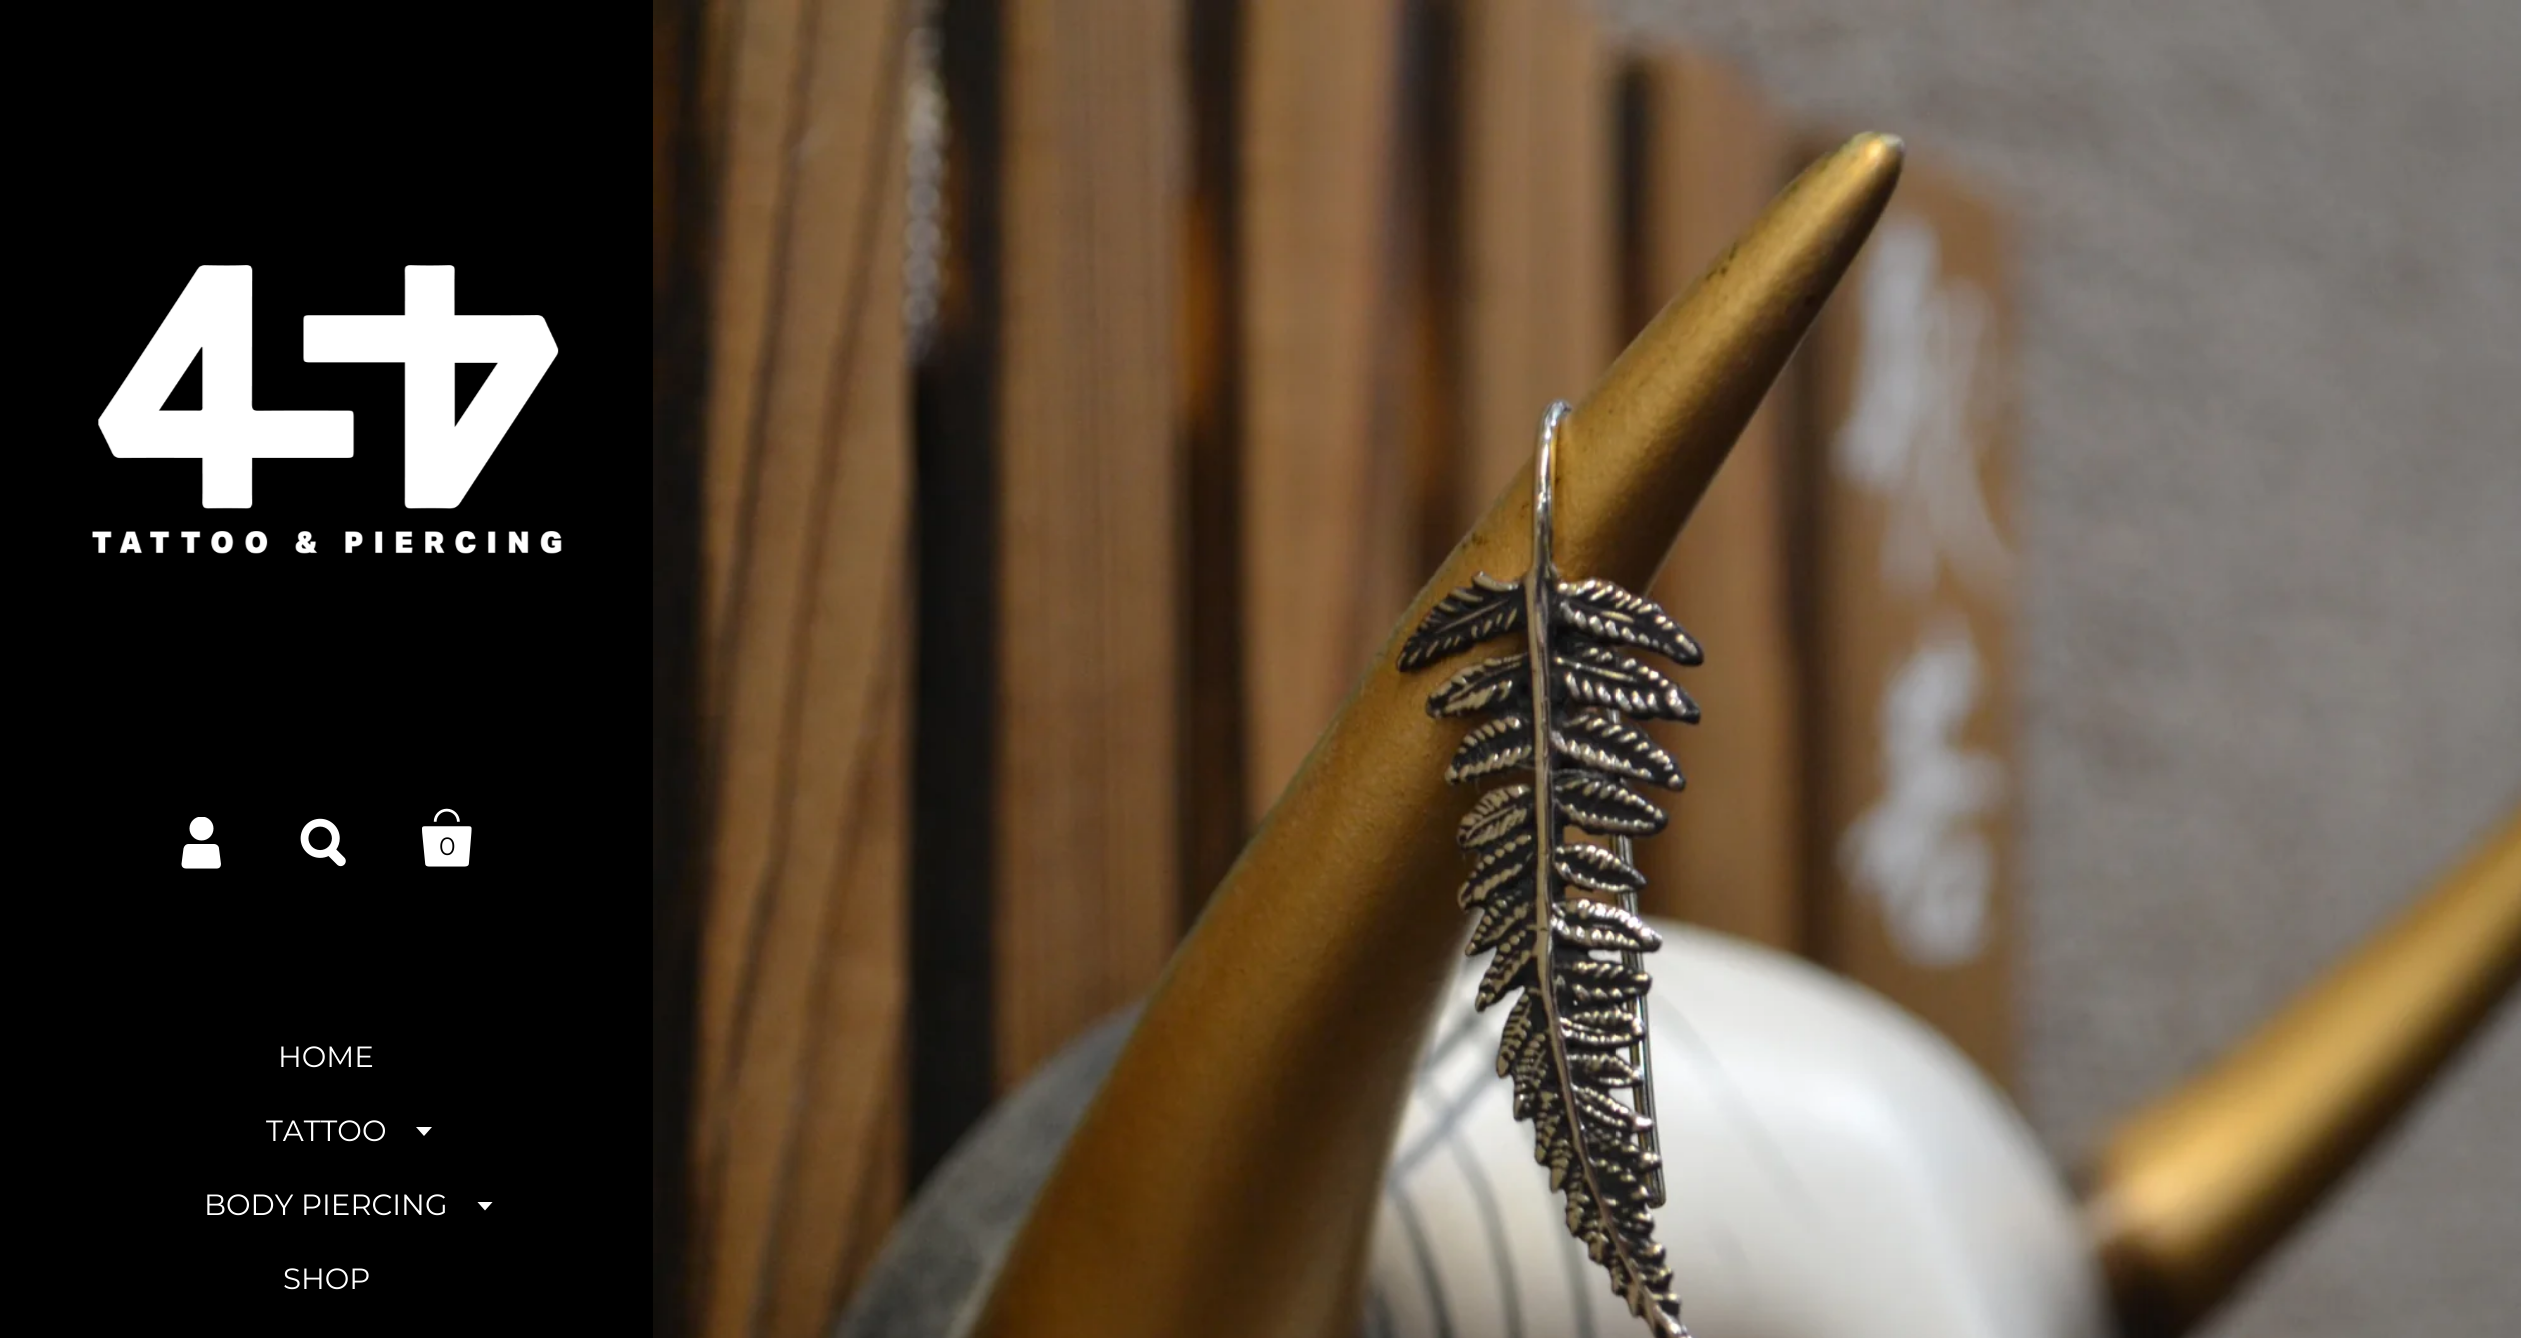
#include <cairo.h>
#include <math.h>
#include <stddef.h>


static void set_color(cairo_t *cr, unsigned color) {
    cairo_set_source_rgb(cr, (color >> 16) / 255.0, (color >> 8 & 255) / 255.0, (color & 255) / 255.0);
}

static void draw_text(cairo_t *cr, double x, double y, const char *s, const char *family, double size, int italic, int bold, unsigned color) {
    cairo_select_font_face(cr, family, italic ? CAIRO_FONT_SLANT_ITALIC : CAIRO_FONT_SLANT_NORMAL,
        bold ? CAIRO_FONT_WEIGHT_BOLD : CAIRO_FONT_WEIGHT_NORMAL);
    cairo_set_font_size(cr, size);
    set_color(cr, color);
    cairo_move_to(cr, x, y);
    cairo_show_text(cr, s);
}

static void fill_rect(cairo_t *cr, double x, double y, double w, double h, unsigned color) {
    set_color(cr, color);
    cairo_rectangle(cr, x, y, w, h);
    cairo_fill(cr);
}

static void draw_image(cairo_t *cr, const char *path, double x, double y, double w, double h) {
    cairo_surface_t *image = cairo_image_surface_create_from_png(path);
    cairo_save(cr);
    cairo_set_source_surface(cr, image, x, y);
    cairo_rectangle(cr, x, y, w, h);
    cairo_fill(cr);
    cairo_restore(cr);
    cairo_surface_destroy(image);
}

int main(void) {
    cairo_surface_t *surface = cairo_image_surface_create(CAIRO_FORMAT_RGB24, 2521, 1338);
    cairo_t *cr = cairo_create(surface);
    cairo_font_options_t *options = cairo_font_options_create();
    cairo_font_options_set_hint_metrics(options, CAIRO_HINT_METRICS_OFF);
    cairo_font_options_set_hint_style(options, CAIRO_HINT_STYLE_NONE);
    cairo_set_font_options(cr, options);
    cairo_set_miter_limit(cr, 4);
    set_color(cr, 0xFFFFFF);
    cairo_paint(cr);
    fill_rect(cr, 0, 0, 653, 1338, 0x000000);
    draw_image(cr, "assets/img1.png", 92, 265, 470, 289);
    set_color(cr, 0xFFFFFF);
    cairo_new_path(cr);
    cairo_move_to(cr, 221, 864);
    cairo_line_to(cr, 219, 848.5);
    cairo_curve_to(cr, 219, 846, 216.5, 844, 214, 844);
    cairo_line_to(cr, 188.5, 844);
    cairo_curve_to(cr, 186, 844, 184, 846, 183.5, 848.5);
    cairo_line_to(cr, 181.5, 864);
    cairo_curve_to(cr, 181.5, 866.5, 183, 868.5, 186, 868.5);
    cairo_line_to(cr, 217, 868.5);
    cairo_curve_to(cr, 219.5, 868.5, 221, 866.5, 221, 864);
    cairo_close_path(cr);
    cairo_fill(cr);
    cairo_save(cr);
    cairo_rectangle(cr, 176, 817, 51, 52);
    cairo_clip(cr);
    cairo_arc(cr, 201.5, 828.5, 12, 0, 2 * M_PI);
    cairo_fill(cr);
    cairo_restore(cr);
    draw_image(cr, "assets/img2.png", 300, 818, 46, 49);
    draw_image(cr, "assets/img3.png", 422, 808, 50, 59);
    draw_text(cr, 439, 855, "0", "Montserrat", 25, 0, 0, 0x000000);
    draw_text(cr, 278, 1067, "HOME", "Montserrat", 29.25, 0, 0, 0xFFFFFF);
    draw_text(cr, 266, 1141, "TATTOO", "Montserrat", 29.25, 0, 0, 0xFFFFFF);
    cairo_new_path(cr);
    cairo_move_to(cr, 432, 1127);
    cairo_line_to(cr, 424, 1136);
    cairo_line_to(cr, 416, 1127);
    cairo_close_path(cr);
    cairo_fill(cr);
    draw_text(cr, 204, 1215, "BODY PIERCING", "Montserrat", 29.25, 0, 0, 0xFFFFFF);
    cairo_save(cr);
    cairo_rectangle(cr, 477, 1202, 16, 9);
    cairo_clip(cr);
    cairo_new_path(cr);
    cairo_move_to(cr, 493, 1201.5);
    cairo_line_to(cr, 485, 1210.5);
    cairo_line_to(cr, 477, 1201.5);
    cairo_close_path(cr);
    cairo_fill(cr);
    cairo_restore(cr);
    draw_text(cr, 283, 1289, "SHOP", "Montserrat", 29.25, 0, 0, 0xFFFFFF);
    draw_image(cr, "assets/img4.png", 653, 0, 1868, 1338);
    cairo_surface_write_to_png(surface, "output.png");
    cairo_font_options_destroy(options);
    cairo_destroy(cr);
    cairo_surface_destroy(surface);
    return 0;
}
